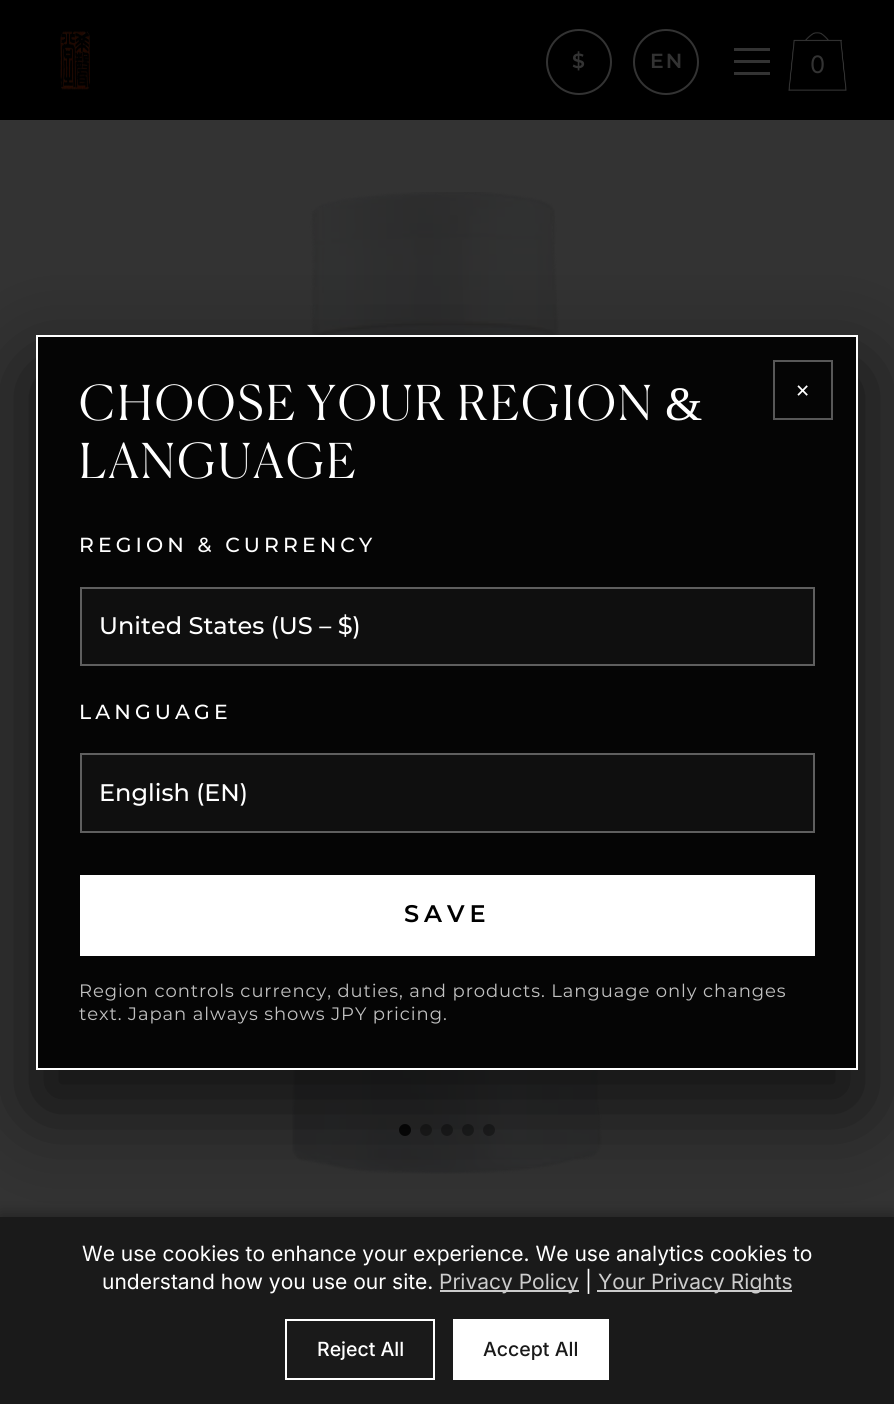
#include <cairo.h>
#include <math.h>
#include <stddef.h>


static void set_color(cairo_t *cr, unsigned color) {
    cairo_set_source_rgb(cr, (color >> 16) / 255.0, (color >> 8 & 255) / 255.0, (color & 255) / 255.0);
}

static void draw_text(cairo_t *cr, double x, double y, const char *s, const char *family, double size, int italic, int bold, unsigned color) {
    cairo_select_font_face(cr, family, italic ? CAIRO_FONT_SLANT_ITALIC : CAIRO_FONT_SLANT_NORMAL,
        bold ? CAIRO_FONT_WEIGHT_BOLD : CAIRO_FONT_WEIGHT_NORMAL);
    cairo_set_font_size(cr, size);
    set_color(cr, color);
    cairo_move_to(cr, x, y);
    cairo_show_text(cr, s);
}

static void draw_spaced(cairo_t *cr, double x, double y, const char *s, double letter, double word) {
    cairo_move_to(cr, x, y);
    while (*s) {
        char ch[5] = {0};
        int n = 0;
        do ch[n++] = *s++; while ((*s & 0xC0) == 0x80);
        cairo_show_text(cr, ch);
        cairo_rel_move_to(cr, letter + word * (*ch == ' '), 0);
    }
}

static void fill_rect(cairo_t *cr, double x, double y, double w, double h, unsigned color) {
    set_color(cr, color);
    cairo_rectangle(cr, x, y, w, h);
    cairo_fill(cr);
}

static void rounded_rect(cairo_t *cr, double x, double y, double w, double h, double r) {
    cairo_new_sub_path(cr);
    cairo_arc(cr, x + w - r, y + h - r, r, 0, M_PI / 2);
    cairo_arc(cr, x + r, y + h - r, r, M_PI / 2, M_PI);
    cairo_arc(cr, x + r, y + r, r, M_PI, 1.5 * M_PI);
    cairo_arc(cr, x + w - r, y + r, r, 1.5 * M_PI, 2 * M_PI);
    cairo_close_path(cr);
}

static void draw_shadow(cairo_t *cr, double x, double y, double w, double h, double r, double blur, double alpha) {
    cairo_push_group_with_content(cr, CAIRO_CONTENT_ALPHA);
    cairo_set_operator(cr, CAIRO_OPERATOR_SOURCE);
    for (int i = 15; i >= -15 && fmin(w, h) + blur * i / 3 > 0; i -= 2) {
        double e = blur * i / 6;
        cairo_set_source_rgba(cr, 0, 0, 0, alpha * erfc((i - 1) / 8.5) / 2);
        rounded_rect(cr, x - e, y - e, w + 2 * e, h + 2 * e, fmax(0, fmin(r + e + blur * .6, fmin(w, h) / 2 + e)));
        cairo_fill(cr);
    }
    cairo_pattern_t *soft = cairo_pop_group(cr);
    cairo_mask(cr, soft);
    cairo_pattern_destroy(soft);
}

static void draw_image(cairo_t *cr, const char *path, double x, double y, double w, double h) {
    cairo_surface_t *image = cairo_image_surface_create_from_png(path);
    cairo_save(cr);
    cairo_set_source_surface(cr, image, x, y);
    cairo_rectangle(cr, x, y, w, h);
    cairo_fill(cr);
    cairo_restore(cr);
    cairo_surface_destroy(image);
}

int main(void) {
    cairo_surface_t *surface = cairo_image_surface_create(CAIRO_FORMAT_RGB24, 894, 1404);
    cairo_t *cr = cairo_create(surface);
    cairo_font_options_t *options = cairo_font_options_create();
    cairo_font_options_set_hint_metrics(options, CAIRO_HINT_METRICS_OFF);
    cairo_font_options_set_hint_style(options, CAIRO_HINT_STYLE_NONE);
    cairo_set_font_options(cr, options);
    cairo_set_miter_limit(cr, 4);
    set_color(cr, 0x333333);
    cairo_paint(cr);
    fill_rect(cr, 0, 0, 894, 120, 0x000000);
    draw_image(cr, "assets/img1.png", 60, 31, 30, 59);
    cairo_arc(cr, 579, 62, 32, 0, 2 * M_PI);
    set_color(cr, 0x333333);
    cairo_stroke(cr);
    cairo_select_font_face(cr, "Montserrat SemiBold", CAIRO_FONT_SLANT_NORMAL, CAIRO_FONT_WEIGHT_NORMAL);
    cairo_set_font_size(cr, 20.4);
    draw_spaced(cr, 572, 68, "$", 2, 0);
    cairo_new_path(cr);
    cairo_arc(cr, 666, 62, 32, 0, 2 * M_PI);
    cairo_stroke(cr);
    draw_spaced(cr, 650, 68, "EN", 2, 0);
    fill_rect(cr, 734, 48, 36, 3, 0x333333);
    fill_rect(cr, 734, 60, 36, 3, 0x333333);
    fill_rect(cr, 734, 72, 36, 3, 0x333333);
    draw_image(cr, "assets/img2.png", 788, 31, 59, 60);
    draw_text(cr, 810, 73, "0", "Inter", 24, 0, 0, 0x333333);
    draw_image(cr, "assets/img3.png", 292, 192, 310, 982);
    set_color(cr, 0x070707);
    cairo_arc(cr, 405, 1130, 6, 0, 2 * M_PI);
    cairo_fill(cr);
    cairo_set_source_rgba(cr, 0.027, 0.027, 0.027, 0.4);
    cairo_arc(cr, 426, 1130, 6, 0, 2 * M_PI);
    cairo_fill(cr);
    cairo_arc(cr, 447, 1130, 6, 0, 2 * M_PI);
    cairo_fill(cr);
    cairo_arc(cr, 468, 1130, 6, 0, 2 * M_PI);
    cairo_fill(cr);
    cairo_arc(cr, 489, 1130, 6, 0, 2 * M_PI);
    cairo_fill(cr);
    set_color(cr, 0x000000);
    draw_shadow(cr, 36, 372, 822, 735, 0, 45, 0.65);
    set_color(cr, 0x050505);
    cairo_rectangle(cr, 37, 336, 820, 733);
    cairo_fill_preserve(cr);
    set_color(cr, 0xFFFFFF);
    cairo_stroke(cr);
    cairo_select_font_face(cr, "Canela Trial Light", CAIRO_FONT_SLANT_NORMAL, CAIRO_FONT_WEIGHT_NORMAL);
    cairo_set_font_size(cr, 48);
    draw_spaced(cr, 79, 420, "CHOOSE YOUR REGION", 2.4, 0);
    cairo_select_font_face(cr, "Liberation Serif", CAIRO_FONT_SLANT_NORMAL, CAIRO_FONT_WEIGHT_NORMAL);
    draw_spaced(cr, 665, 420, "&", 2.4, 0);
    cairo_select_font_face(cr, "Canela Trial Light", CAIRO_FONT_SLANT_NORMAL, CAIRO_FONT_WEIGHT_NORMAL);
    draw_spaced(cr, 79, 478, "LANGUAGE", 2.4, 0);
    cairo_rectangle(cr, 774, 361, 58, 58);
    set_color(cr, 0x585858);
    cairo_stroke(cr);
    draw_text(cr, 794, 401, "×", "Montserrat", 30, 0, 0, 0xFFFFFF);
    cairo_select_font_face(cr, "Montserrat Medium", CAIRO_FONT_SLANT_NORMAL, CAIRO_FONT_WEIGHT_NORMAL);
    cairo_set_font_size(cr, 20.4);
    draw_spaced(cr, 79, 552, "REGION & CURRENCY", 4.1, 0);
    set_color(cr, 0x0F0F0F);
    cairo_rectangle(cr, 81, 588, 733, 77);
    cairo_fill_preserve(cr);
    set_color(cr, 0x5F5F5F);
    cairo_stroke(cr);
    draw_text(cr, 99, 634, "United States (US – $)", "Montserrat Medium", 24, 0, 0, 0xFFFFFF);
    cairo_set_font_size(cr, 20.4);
    draw_spaced(cr, 79, 719, "LANGUAGE", 4.1, 0);
    set_color(cr, 0x0F0F0F);
    cairo_rectangle(cr, 81, 754, 733, 78);
    cairo_fill_preserve(cr);
    set_color(cr, 0x5F5F5F);
    cairo_stroke(cr);
    draw_text(cr, 99, 801, "English (EN)", "Montserrat Medium", 24, 0, 0, 0xFFFFFF);
    fill_rect(cr, 80, 875, 735, 81, 0xFFFFFF);
    cairo_select_font_face(cr, "Montserrat SemiBold", CAIRO_FONT_SLANT_NORMAL, CAIRO_FONT_WEIGHT_NORMAL);
    set_color(cr, 0x000000);
    draw_spaced(cr, 404, 922, "SAVE", 5, 0);
    cairo_select_font_face(cr, "Montserrat", CAIRO_FONT_SLANT_NORMAL, CAIRO_FONT_WEIGHT_NORMAL);
    cairo_set_font_size(cr, 18);
    set_color(cr, 0xC1C1C1);
    draw_spaced(cr, 79, 997, "Region controls currency, duties, and products. Language only changes", 0.9, 0);
    draw_spaced(cr, 79, 1020, "text. Japan always shows JPY pricing.", 0.9, 0);
    set_color(cr, 0x000000);
    draw_shadow(cr, 0, 1214, 894, 187, 0, 7.5, 0.3);
    fill_rect(cr, 0, 1217, 894, 187, 0x1A1A1A);
    draw_text(cr, 82, 1261, "We use cookies to enhance your experience. We use analytics cookies to", "Inter", 21, 0, 0, 0xFFFFFF);
    draw_text(cr, 102, 1289, "understand how you use our site.", "Inter", 21, 0, 0, 0xFFFFFF);
    fill_rect(cr, 440, 1290, 139, 2, 0xCCCCCC);
    draw_text(cr, 439, 1289, "Privacy Policy", "Inter", 21, 0, 0, 0xCCCCCC);
    draw_text(cr, 585, 1289, "|", "Inter", 21, 0, 0, 0xFFFFFF);
    fill_rect(cr, 597, 1290, 195, 2, 0xCCCCCC);
    draw_text(cr, 598, 1289, "Your Privacy Rights", "Inter", 21, 0, 0, 0xCCCCCC);
    cairo_rectangle(cr, 286, 1320, 148, 59);
    set_color(cr, 0xFFFFFF);
    cairo_stroke(cr);
    draw_text(cr, 317, 1356, "Reject All", "Inter Medium", 19.5, 0, 0, 0xFFFFFF);
    fill_rect(cr, 453, 1319, 156, 61, 0xFFFFFF);
    draw_text(cr, 483, 1356, "Accept All", "Inter Medium", 19.5, 0, 0, 0x1A1A1A);
    cairo_surface_write_to_png(surface, "output.png");
    cairo_font_options_destroy(options);
    cairo_destroy(cr);
    cairo_surface_destroy(surface);
    return 0;
}
